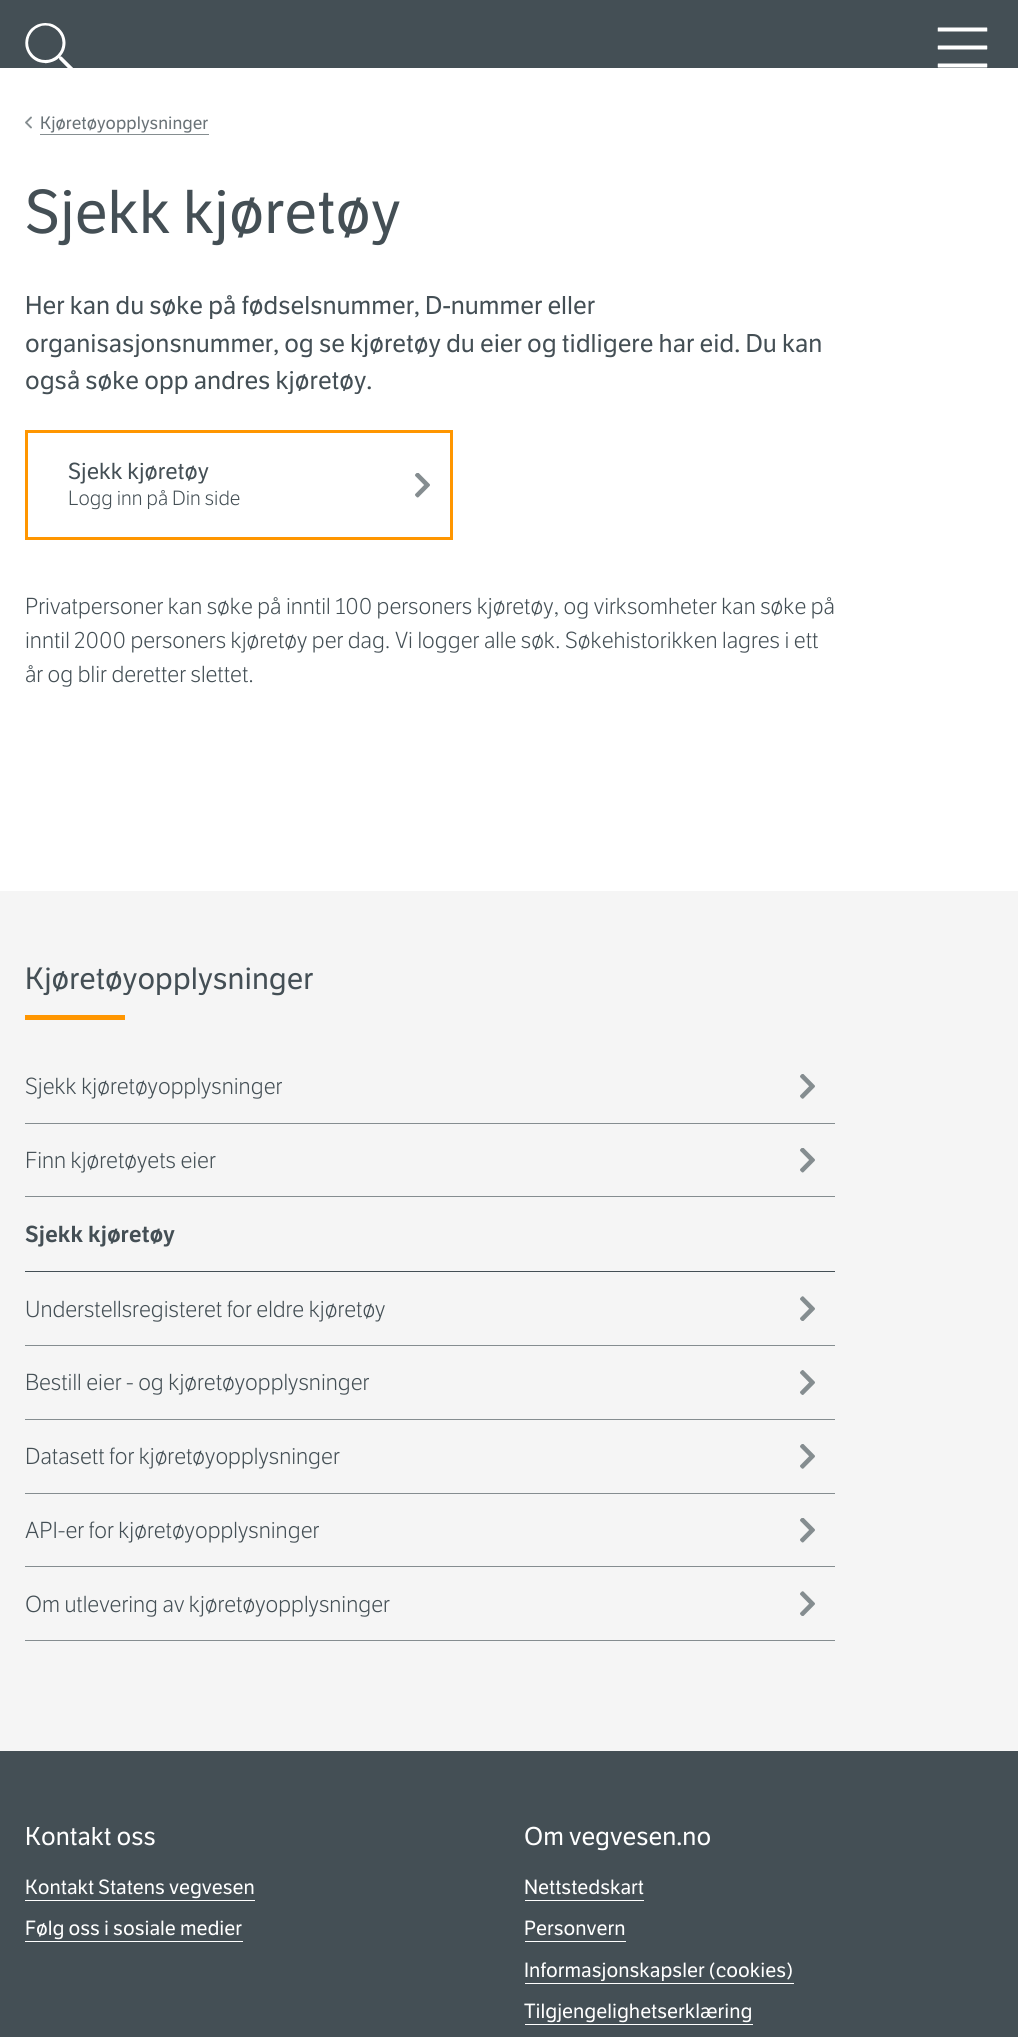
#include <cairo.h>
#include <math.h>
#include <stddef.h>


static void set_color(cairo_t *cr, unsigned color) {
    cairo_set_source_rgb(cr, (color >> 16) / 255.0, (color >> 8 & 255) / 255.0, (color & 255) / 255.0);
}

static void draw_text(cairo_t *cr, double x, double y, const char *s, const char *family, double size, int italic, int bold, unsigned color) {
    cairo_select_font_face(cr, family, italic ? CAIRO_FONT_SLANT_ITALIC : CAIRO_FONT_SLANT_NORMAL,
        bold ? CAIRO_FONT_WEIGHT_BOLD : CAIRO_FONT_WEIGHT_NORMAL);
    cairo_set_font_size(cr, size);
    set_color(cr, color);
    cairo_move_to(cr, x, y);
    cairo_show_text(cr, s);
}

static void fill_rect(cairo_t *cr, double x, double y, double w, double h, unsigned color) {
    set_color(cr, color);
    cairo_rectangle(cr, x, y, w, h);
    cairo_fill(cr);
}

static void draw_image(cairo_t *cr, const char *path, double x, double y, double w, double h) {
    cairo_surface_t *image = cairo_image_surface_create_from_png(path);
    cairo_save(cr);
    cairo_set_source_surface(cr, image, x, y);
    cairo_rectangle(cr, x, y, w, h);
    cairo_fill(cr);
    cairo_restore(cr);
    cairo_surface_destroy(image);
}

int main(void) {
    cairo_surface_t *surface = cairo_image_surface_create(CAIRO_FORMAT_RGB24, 1018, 2037);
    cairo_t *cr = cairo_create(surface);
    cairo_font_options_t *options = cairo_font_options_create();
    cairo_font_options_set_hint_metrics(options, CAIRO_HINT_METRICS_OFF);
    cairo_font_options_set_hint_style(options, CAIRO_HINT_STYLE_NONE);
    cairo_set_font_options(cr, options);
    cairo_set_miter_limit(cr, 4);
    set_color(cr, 0xFFFFFF);
    cairo_paint(cr);
    fill_rect(cr, 0, 0, 1018, 68, 0x444F55);
    draw_image(cr, "assets/img1.png", 25, 23, 48, 45);
    draw_image(cr, "assets/img2.png", 937, 27, 51, 41);
    cairo_new_path(cr);
    cairo_move_to(cr, 31, 127.5);
    cairo_line_to(cr, 26, 122.5);
    cairo_line_to(cr, 31, 117.5);
    set_color(cr, 0x858D90);
    cairo_set_line_width(cr, 1.9);
    cairo_set_line_cap(cr, CAIRO_LINE_CAP_ROUND);
    cairo_set_line_join(cr, CAIRO_LINE_JOIN_ROUND);
    cairo_stroke(cr);
    draw_text(cr, 40, 129, "Kjøretøyopplysninger", "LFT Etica", 17.5, 0, 0, 0x697277);
    fill_rect(cr, 40, 134, 169, 1, 0x858D90);
    draw_text(cr, 25, 233, "Sjekk kjøretøy", "LFT Etica", 60, 0, 0, 0x444F55);
    draw_text(cr, 25, 314, "Her kan du søke på fødselsnummer, D-nummer eller", "LFT Etica", 25, 0, 0, 0x444F55);
    draw_text(cr, 25, 352, "organisasjonsnummer, og se kjøretøy du eier og tidligere har eid. Du kan", "LFT Etica", 25, 0, 0, 0x444F55);
    draw_text(cr, 25, 389, "også søke opp andres kjøretøy.", "LFT Etica", 25, 0, 0, 0x444F55);
    draw_image(cr, "assets/img3.png", 415, 473, 15, 25);
    cairo_rectangle(cr, 26.5, 431.5, 425, 107);
    set_color(cr, 0xFF9600);
    cairo_set_line_width(cr, 3);
    cairo_set_line_cap(cr, CAIRO_LINE_CAP_BUTT);
    cairo_set_line_join(cr, CAIRO_LINE_JOIN_MITER);
    cairo_stroke(cr);
    draw_text(cr, 68, 479, "Sjekk kjøretøy", "LFT Etica", 22.5, 0, 0, 0x444F55);
    draw_text(cr, 68, 505, "Logg inn på Din side", "LFT Etica Light", 20, 0, 0, 0x444F55);
    draw_text(cr, 25, 614, "Privatpersoner kan søke på inntil 100 personers kjøretøy, og virksomheter kan søke på", "LFT Etica Light", 22.5, 0, 0, 0x444F55);
    draw_text(cr, 25, 648, "inntil 2000 personers kjøretøy per dag. Vi logger alle søk. Søkehistorikken lagres i ett", "LFT Etica Light", 22.5, 0, 0, 0x444F55);
    draw_text(cr, 25, 682, "år og blir deretter slettet.", "LFT Etica Light", 22.5, 0, 0, 0x444F55);
    fill_rect(cr, 0, 891, 1018, 860, 0xF5F5F5);
    draw_text(cr, 25, 989, "Kjøretøyopplysninger", "LFT Etica", 30, 0, 0, 0x444F55);
    fill_rect(cr, 25, 1015, 100, 5, 0xFF9600);
    draw_image(cr, "assets/img4.png", 800, 1074, 15, 25);
    fill_rect(cr, 25, 1123, 810, 1, 0x858D90);
    draw_text(cr, 25, 1094, "Sjekk kjøretøyopplysninger", "LFT Etica Light", 22.5, 0, 0, 0x444F55);
    draw_image(cr, "assets/img5.png", 800, 1148, 15, 25);
    fill_rect(cr, 25, 1196, 810, 1, 0x858D90);
    draw_text(cr, 25, 1168, "Finn kjøretøyets eier", "LFT Etica Light", 22.5, 0, 0, 0x444F55);
    fill_rect(cr, 25, 1271, 810, 1, 0x444F55);
    draw_text(cr, 25, 1242, "Sjekk kjøretøy", "LFT Etica SemiBold", 22.5, 0, 0, 0x444F55);
    draw_image(cr, "assets/img6.png", 800, 1296, 15, 25);
    fill_rect(cr, 25, 1345, 810, 1, 0x858D90);
    draw_text(cr, 25, 1317, "Understellsregisteret for eldre kjøretøy", "LFT Etica Light", 22.5, 0, 0, 0x444F55);
    draw_image(cr, "assets/img7.png", 800, 1370, 15, 25);
    fill_rect(cr, 25, 1419, 810, 1, 0x858D90);
    draw_text(cr, 25, 1390, "Bestill eier - og kjøretøyopplysninger", "LFT Etica Light", 22.5, 0, 0, 0x444F55);
    draw_image(cr, "assets/img4.png", 800, 1444, 15, 25);
    fill_rect(cr, 25, 1493, 810, 1, 0x858D90);
    draw_text(cr, 25, 1464, "Datasett for kjøretøyopplysninger", "LFT Etica Light", 22.5, 0, 0, 0x444F55);
    draw_image(cr, "assets/img5.png", 800, 1518, 15, 25);
    fill_rect(cr, 25, 1566, 810, 1, 0x858D90);
    draw_text(cr, 25, 1538, "API-er for kjøretøyopplysninger", "LFT Etica Light", 22.5, 0, 0, 0x444F55);
    draw_image(cr, "assets/img6.png", 800, 1591, 15, 25);
    fill_rect(cr, 25, 1640, 810, 1, 0x858D90);
    draw_text(cr, 25, 1612, "Om utlevering av kjøretøyopplysninger", "LFT Etica Light", 22.5, 0, 0, 0x444F55);
    fill_rect(cr, 0, 1751, 1018, 286, 0x444F55);
    draw_text(cr, 25, 1845, "Kontakt oss", "LFT Etica", 25, 0, 0, 0xFFFFFF);
    draw_text(cr, 25, 1894, "Kontakt Statens vegvesen", "LFT Etica", 20, 0, 0, 0xFFFFFF);
    fill_rect(cr, 25, 1900, 230, 1, 0xFFFFFF);
    draw_text(cr, 25, 1935, "Følg oss i sosiale medier", "LFT Etica", 20, 0, 0, 0xFFFFFF);
    fill_rect(cr, 25, 1941, 218, 1, 0xFFFFFF);
    draw_text(cr, 524, 1845, "Om vegvesen.no", "LFT Etica", 25, 0, 0, 0xFFFFFF);
    draw_text(cr, 524, 1894, "Nettstedskart", "LFT Etica", 20, 0, 0, 0xFFFFFF);
    fill_rect(cr, 525, 1900, 119, 1, 0xFFFFFF);
    draw_text(cr, 524, 1935, "Personvern", "LFT Etica", 20, 0, 0, 0xFFFFFF);
    fill_rect(cr, 525, 1941, 101, 1, 0xFFFFFF);
    draw_text(cr, 524, 1977, "Informasjonskapsler (cookies)", "LFT Etica", 20, 0, 0, 0xFFFFFF);
    fill_rect(cr, 525, 1983, 269, 1, 0xFFFFFF);
    draw_text(cr, 524, 2018, "Tilgjengelighetserklæring", "LFT Etica", 20, 0, 0, 0xFFFFFF);
    fill_rect(cr, 525, 2024, 228, 1, 0xFFFFFF);
    cairo_surface_write_to_png(surface, "output.png");
    cairo_font_options_destroy(options);
    cairo_destroy(cr);
    cairo_surface_destroy(surface);
    return 0;
}
